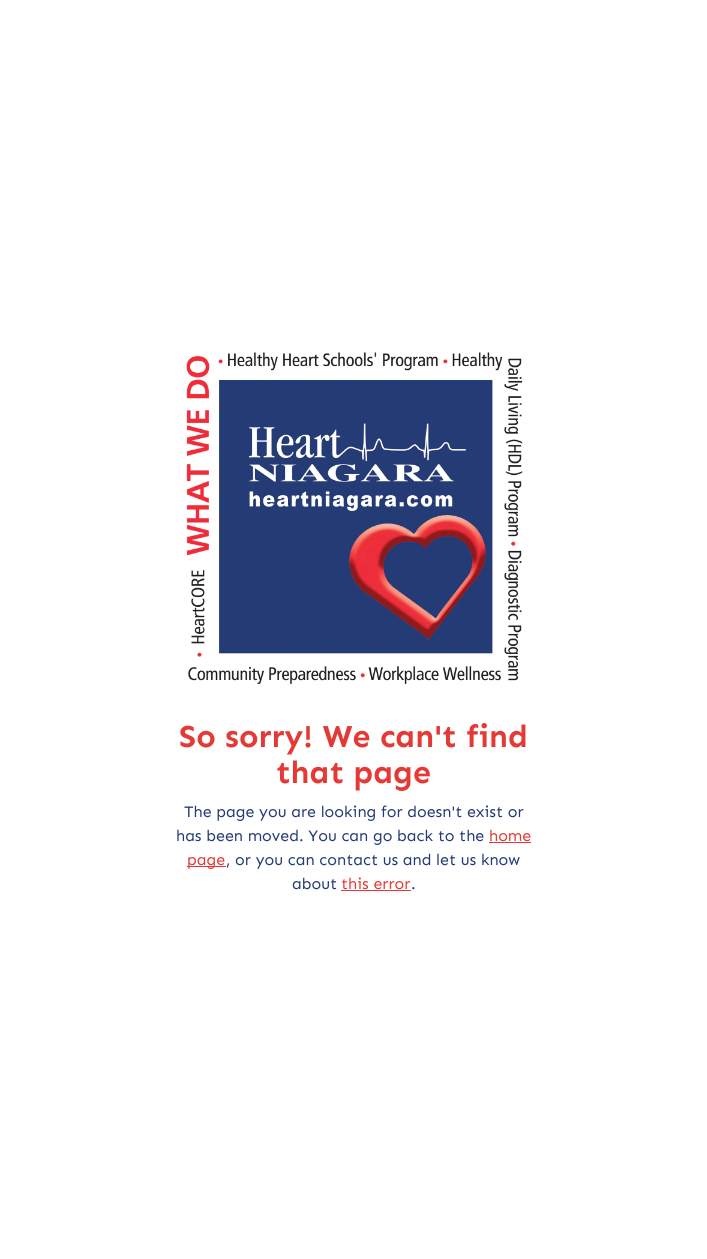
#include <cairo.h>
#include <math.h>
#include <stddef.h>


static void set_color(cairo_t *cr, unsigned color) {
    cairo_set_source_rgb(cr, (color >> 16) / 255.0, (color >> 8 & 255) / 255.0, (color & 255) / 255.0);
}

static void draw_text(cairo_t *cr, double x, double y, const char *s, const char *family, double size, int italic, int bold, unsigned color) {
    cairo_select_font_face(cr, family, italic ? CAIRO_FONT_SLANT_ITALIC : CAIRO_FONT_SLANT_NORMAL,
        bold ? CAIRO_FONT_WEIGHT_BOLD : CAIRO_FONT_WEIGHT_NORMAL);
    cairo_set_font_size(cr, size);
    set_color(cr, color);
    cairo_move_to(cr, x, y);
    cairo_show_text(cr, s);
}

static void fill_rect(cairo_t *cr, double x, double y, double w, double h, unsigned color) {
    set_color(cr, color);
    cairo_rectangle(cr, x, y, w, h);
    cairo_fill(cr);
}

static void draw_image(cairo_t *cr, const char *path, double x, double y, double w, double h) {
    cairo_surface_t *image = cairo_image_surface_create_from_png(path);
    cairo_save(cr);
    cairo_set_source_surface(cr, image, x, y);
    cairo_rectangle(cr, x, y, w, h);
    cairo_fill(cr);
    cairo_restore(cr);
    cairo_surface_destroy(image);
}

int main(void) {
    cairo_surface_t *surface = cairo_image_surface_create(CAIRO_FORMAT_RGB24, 707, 1259);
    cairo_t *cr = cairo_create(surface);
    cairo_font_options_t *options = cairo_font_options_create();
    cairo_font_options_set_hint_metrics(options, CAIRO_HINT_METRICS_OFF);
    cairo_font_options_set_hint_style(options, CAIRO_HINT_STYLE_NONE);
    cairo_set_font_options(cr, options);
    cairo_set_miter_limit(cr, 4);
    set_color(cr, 0xFFFFFF);
    cairo_paint(cr);
    draw_image(cr, "assets/img1.png", 186, 352, 337, 332);
    draw_text(cr, 179, 747, "So sorry! We can't find", "Sen", 32, 0, 1, 0xE53935);
    draw_text(cr, 276, 783, "that page", "Sen", 32, 0, 1, 0xE53935);
    draw_text(cr, 184, 817, "The page you are looking for doesn't exist or", "Sen", 16, 0, 0, 0x243B76);
    draw_text(cr, 176, 841, "has been moved. You can go back to the", "Sen", 16, 0, 0, 0x243B76);
    draw_text(cr, 489, 841, "home", "Sen", 16, 0, 0, 0xE53935);
    fill_rect(cr, 489, 842, 42, 1, 0xE53935);
    fill_rect(cr, 187, 866, 39, 1, 0xE53935);
    draw_text(cr, 187, 865, "page", "Sen", 16, 0, 0, 0xE53935);
    draw_text(cr, 226, 865, ", or you can contact us and let us know", "Sen", 16, 0, 0, 0x243B76);
    draw_text(cr, 292, 889, "about", "Sen", 16, 0, 0, 0x243B76);
    draw_text(cr, 341, 889, "this error", "Sen", 16, 0, 0, 0xE53935);
    fill_rect(cr, 341, 890, 70, 1, 0xE53935);
    draw_text(cr, 411, 889, ".", "Sen", 16, 0, 0, 0x243B76);
    cairo_surface_write_to_png(surface, "output.png");
    cairo_font_options_destroy(options);
    cairo_destroy(cr);
    cairo_surface_destroy(surface);
    return 0;
}
